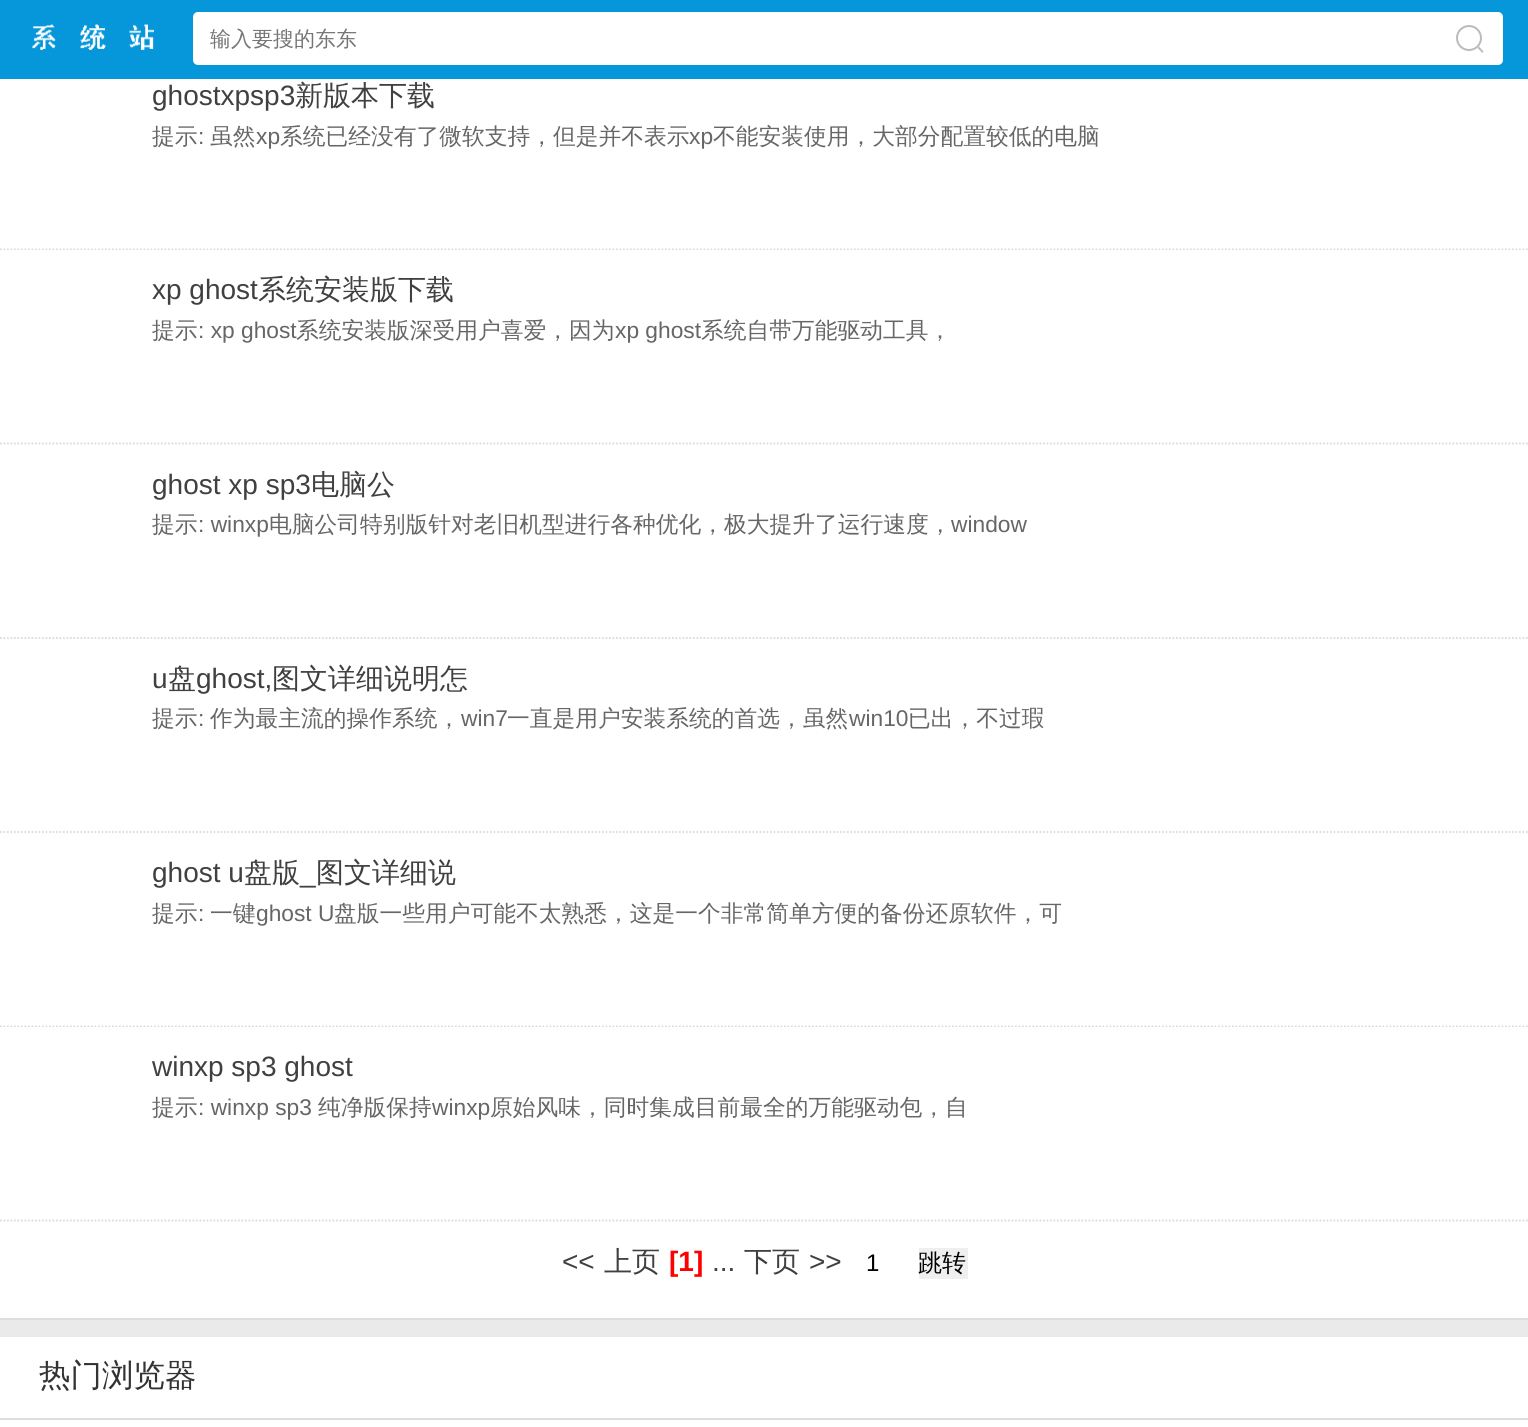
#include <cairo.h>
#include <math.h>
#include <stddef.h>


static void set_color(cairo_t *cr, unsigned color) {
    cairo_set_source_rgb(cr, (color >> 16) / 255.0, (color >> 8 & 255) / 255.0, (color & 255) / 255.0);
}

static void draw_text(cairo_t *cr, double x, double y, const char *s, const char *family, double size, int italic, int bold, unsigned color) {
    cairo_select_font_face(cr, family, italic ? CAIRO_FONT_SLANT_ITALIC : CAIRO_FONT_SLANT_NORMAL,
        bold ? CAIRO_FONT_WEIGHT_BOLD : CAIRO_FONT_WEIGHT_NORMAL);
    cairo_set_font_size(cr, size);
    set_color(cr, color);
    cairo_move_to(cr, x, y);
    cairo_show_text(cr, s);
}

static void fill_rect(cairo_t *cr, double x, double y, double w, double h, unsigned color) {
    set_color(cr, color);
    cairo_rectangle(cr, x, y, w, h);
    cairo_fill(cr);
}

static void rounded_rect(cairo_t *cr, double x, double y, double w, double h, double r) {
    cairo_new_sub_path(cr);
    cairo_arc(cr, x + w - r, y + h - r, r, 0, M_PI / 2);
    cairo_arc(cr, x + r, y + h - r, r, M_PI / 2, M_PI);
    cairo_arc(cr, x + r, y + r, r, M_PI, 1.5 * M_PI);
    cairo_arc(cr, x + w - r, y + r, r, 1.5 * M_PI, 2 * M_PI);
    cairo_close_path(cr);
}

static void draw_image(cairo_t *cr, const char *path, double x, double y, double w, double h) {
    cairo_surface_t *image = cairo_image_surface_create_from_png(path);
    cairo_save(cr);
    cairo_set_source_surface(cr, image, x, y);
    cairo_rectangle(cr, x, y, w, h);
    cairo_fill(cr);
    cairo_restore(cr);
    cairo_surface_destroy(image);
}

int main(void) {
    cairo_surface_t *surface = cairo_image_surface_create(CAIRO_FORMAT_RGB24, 1528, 1427);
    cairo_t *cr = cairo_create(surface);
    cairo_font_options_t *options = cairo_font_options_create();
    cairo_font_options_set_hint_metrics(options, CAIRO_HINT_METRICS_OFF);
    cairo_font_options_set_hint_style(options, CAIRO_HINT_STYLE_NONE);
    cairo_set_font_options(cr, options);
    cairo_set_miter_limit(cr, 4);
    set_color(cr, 0xEAEAEA);
    cairo_paint(cr);
    fill_rect(cr, 0, 0, 1528, 79, 0x0697DA);
    draw_image(cr, "assets/img1.png", 32, 24, 122, 26);
    set_color(cr, 0xFFFFFF);
    rounded_rect(cr, 193, 12, 1310, 53, 5);
    cairo_fill(cr);
    draw_text(cr, 210, 46, "输入要搜的东东", "WenQuanYi Zen Hei Medium", 21, 0, 0, 0x757575);
    cairo_new_path(cr);
    cairo_arc(cr, 1469, 38, 12, 0, 2 * M_PI);
    set_color(cr, 0xBBBBBB);
    cairo_stroke(cr);
    cairo_new_path(cr);
    cairo_move_to(cr, 1483.5, 51.5);
    cairo_line_to(cr, 1482.5, 53);
    cairo_line_to(cr, 1477.5, 48);
    cairo_line_to(cr, 1479, 46.5);
    cairo_close_path(cr);
    cairo_fill(cr);
    fill_rect(cr, 0, 79, 1528, 171, 0xFFFFFF);
    cairo_new_path(cr);
    cairo_move_to(cr, 0, 249.5);
    cairo_line_to(cr, 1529.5, 249.5);
    set_color(cr, 0xDADADA);
    cairo_set_line_width(cr, 1.8);
    cairo_set_dash(cr, (double[]){1.75, 1.75}, 2, 0);
    cairo_stroke(cr);
    draw_text(cr, 152, 105, "ghostxpsp3", "Liberation Sans", 28, 0, 0, 0x404040);
    draw_text(cr, 295, 105, "新版本下载", "WenQuanYi Zen Hei Medium", 28, 0, 0, 0x404040);
    draw_text(cr, 152, 144, "提示", "WenQuanYi Zen Hei Medium", 22.75, 0, 0, 0x666666);
    draw_text(cr, 198, 144, ":", "Liberation Sans", 22.75, 0, 0, 0x666666);
    draw_text(cr, 210, 144, "虽然", "WenQuanYi Zen Hei Medium", 22.75, 0, 0, 0x666666);
    draw_text(cr, 256, 144, "xp", "Liberation Sans", 22.75, 0, 0, 0x666666);
    draw_text(cr, 280, 144, "系统已经没有了微软支持，但是并不表示", "WenQuanYi Zen Hei Medium", 22.75, 0, 0, 0x666666);
    draw_text(cr, 689, 144, "xp", "Liberation Sans", 22.75, 0, 0, 0x666666);
    draw_text(cr, 713, 144, "不能安装使用，大部分配置较低的电脑", "WenQuanYi Zen Hei Medium", 22.75, 0, 0, 0x666666);
    fill_rect(cr, 0, 250, 1528, 777, 0xFFFFFF);
    cairo_new_path(cr);
    cairo_move_to(cr, 0, 443.5);
    cairo_line_to(cr, 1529.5, 443.5);
    set_color(cr, 0xDADADA);
    cairo_stroke(cr);
    draw_text(cr, 152, 299, "xp ghost", "Liberation Sans", 28, 0, 0, 0x404040);
    draw_text(cr, 258, 299, "系统安装版下载", "WenQuanYi Zen Hei Medium", 28, 0, 0, 0x404040);
    draw_text(cr, 152, 338, "提示", "WenQuanYi Zen Hei Medium", 22.75, 0, 0, 0x666666);
    draw_text(cr, 198, 338, ": xp ghost", "Liberation Sans", 22.75, 0, 0, 0x666666);
    draw_text(cr, 296, 338, "系统安装版深受用户喜爱，因为", "WenQuanYi Zen Hei Medium", 22.75, 0, 0, 0x666666);
    draw_text(cr, 615, 338, "xp ghost", "Liberation Sans", 22.75, 0, 0, 0x666666);
    draw_text(cr, 701, 338, "系统自带万能驱动工具，", "WenQuanYi Zen Hei Medium", 22.75, 0, 0, 0x666666);
    cairo_new_path(cr);
    cairo_move_to(cr, 0, 638);
    cairo_line_to(cr, 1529.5, 638);
    set_color(cr, 0xDADADA);
    cairo_stroke(cr);
    draw_text(cr, 152, 494, "ghost xp sp3", "Liberation Sans", 28, 0, 0, 0x404040);
    draw_text(cr, 311, 494, "电脑公", "WenQuanYi Zen Hei Medium", 28, 0, 0, 0x404040);
    draw_text(cr, 152, 532, "提示", "WenQuanYi Zen Hei Medium", 22.75, 0, 0, 0x666666);
    draw_text(cr, 198, 532, ": winxp", "Liberation Sans", 22.75, 0, 0, 0x666666);
    draw_text(cr, 269, 532, "电脑公司特别版针对老旧机型进行各种优化，极大提升了运行速度，", "WenQuanYi Zen Hei Medium", 22.75, 0, 0, 0x666666);
    draw_text(cr, 951, 532, "window", "Liberation Sans", 22.75, 0, 0, 0x666666);
    cairo_new_path(cr);
    cairo_move_to(cr, 0, 832);
    cairo_line_to(cr, 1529.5, 832);
    set_color(cr, 0xDADADA);
    cairo_stroke(cr);
    draw_text(cr, 152, 688, "u", "Liberation Sans", 28, 0, 0, 0x404040);
    draw_text(cr, 168, 688, "盘", "WenQuanYi Zen Hei Medium", 28, 0, 0, 0x404040);
    draw_text(cr, 196, 688, "ghost,", "Liberation Sans", 28, 0, 0, 0x404040);
    draw_text(cr, 272, 688, "图文详细说明怎", "WenQuanYi Zen Hei Medium", 28, 0, 0, 0x404040);
    draw_text(cr, 152, 726, "提示", "WenQuanYi Zen Hei Medium", 22.75, 0, 0, 0x666666);
    draw_text(cr, 198, 726, ":", "Liberation Sans", 22.75, 0, 0, 0x666666);
    draw_text(cr, 210, 726, "作为最主流的操作系统，", "WenQuanYi Zen Hei Medium", 22.75, 0, 0, 0x666666);
    draw_text(cr, 461, 726, "win7", "Liberation Sans", 22.75, 0, 0, 0x666666);
    draw_text(cr, 507, 726, "一直是用户安装系统的首选，虽然", "WenQuanYi Zen Hei Medium", 22.75, 0, 0, 0x666666);
    draw_text(cr, 849, 726, "win10", "Liberation Sans", 22.75, 0, 0, 0x666666);
    draw_text(cr, 908, 726, "已出，不过瑕", "WenQuanYi Zen Hei Medium", 22.75, 0, 0, 0x666666);
    cairo_new_path(cr);
    cairo_move_to(cr, 0, 1026.5);
    cairo_line_to(cr, 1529.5, 1026.5);
    set_color(cr, 0xDADADA);
    cairo_stroke(cr);
    draw_text(cr, 152, 882, "ghost u", "Liberation Sans", 28, 0, 0, 0x404040);
    draw_text(cr, 244, 882, "盘版", "WenQuanYi Zen Hei Medium", 28, 0, 0, 0x404040);
    draw_text(cr, 300, 882, "_", "Liberation Sans", 28, 0, 0, 0x404040);
    draw_text(cr, 316, 882, "图文详细说", "WenQuanYi Zen Hei Medium", 28, 0, 0, 0x404040);
    draw_text(cr, 152, 921, "提示", "WenQuanYi Zen Hei Medium", 22.75, 0, 0, 0x666666);
    draw_text(cr, 198, 921, ":", "Liberation Sans", 22.75, 0, 0, 0x666666);
    draw_text(cr, 210, 921, "一键", "WenQuanYi Zen Hei Medium", 22.75, 0, 0, 0x666666);
    draw_text(cr, 256, 921, "ghost U", "Liberation Sans", 22.75, 0, 0, 0x666666);
    draw_text(cr, 334, 921, "盘版一些用户可能不太熟悉，这是一个非常简单方便的备份还原软件，可", "WenQuanYi Zen Hei Medium", 22.75, 0, 0, 0x666666);
    fill_rect(cr, 0, 1027, 1528, 291, 0xFFFFFF);
    cairo_new_path(cr);
    cairo_move_to(cr, 0, 1220.5);
    cairo_line_to(cr, 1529.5, 1220.5);
    set_color(cr, 0xDADADA);
    cairo_stroke(cr);
    draw_text(cr, 152, 1076, "winxp sp3 ghost", "Liberation Sans", 28, 0, 0, 0x404040);
    draw_text(cr, 152, 1115, "提示", "WenQuanYi Zen Hei Medium", 22.75, 0, 0, 0x666666);
    draw_text(cr, 198, 1115, ": winxp sp3", "Liberation Sans", 22.75, 0, 0, 0x666666);
    draw_text(cr, 318, 1115, "纯净版保持", "WenQuanYi Zen Hei Medium", 22.75, 0, 0, 0x666666);
    draw_text(cr, 432, 1115, "winxp", "Liberation Sans", 22.75, 0, 0, 0x666666);
    draw_text(cr, 490, 1115, "原始风味，同时集成目前最全的万能驱动包，自", "WenQuanYi Zen Hei Medium", 22.75, 0, 0, 0x666666);
    fill_rect(cr, 0, 1318, 1528, 2, 0xDDDDDD);
    draw_text(cr, 562, 1271, "<<", "Liberation Sans", 28, 0, 0, 0x404040);
    draw_text(cr, 604, 1271, "上页", "WenQuanYi Zen Hei Medium", 28, 0, 0, 0x404040);
    draw_text(cr, 669, 1271, "[1]", "Liberation Sans", 28, 0, 1, 0xFF0000);
    draw_text(cr, 712, 1271, "...", "Liberation Sans", 28, 0, 0, 0x404040);
    draw_text(cr, 744, 1271, "下页", "WenQuanYi Zen Hei Medium", 28, 0, 0, 0x404040);
    draw_text(cr, 809, 1271, ">>", "Liberation Sans", 28, 0, 0, 0x404040);
    draw_text(cr, 866, 1271, "1", "Liberation Sans", 24, 0, 0, 0x000000);
    fill_rect(cr, 919, 1248, 49, 31, 0xEFEFEF);
    draw_text(cr, 918, 1271, "跳转", "WenQuanYi Zen Hei Medium", 24, 0, 0, 0x000000);
    fill_rect(cr, 0, 1337, 1528, 90, 0xFFFFFF);
    fill_rect(cr, 0, 1418, 1528, 2, 0xDDDDDD);
    draw_text(cr, 39, 1386, "热门浏览器", "WenQuanYi Zen Hei Medium", 31.5, 0, 0, 0x333333);
    cairo_surface_write_to_png(surface, "output.png");
    cairo_font_options_destroy(options);
    cairo_destroy(cr);
    cairo_surface_destroy(surface);
    return 0;
}
